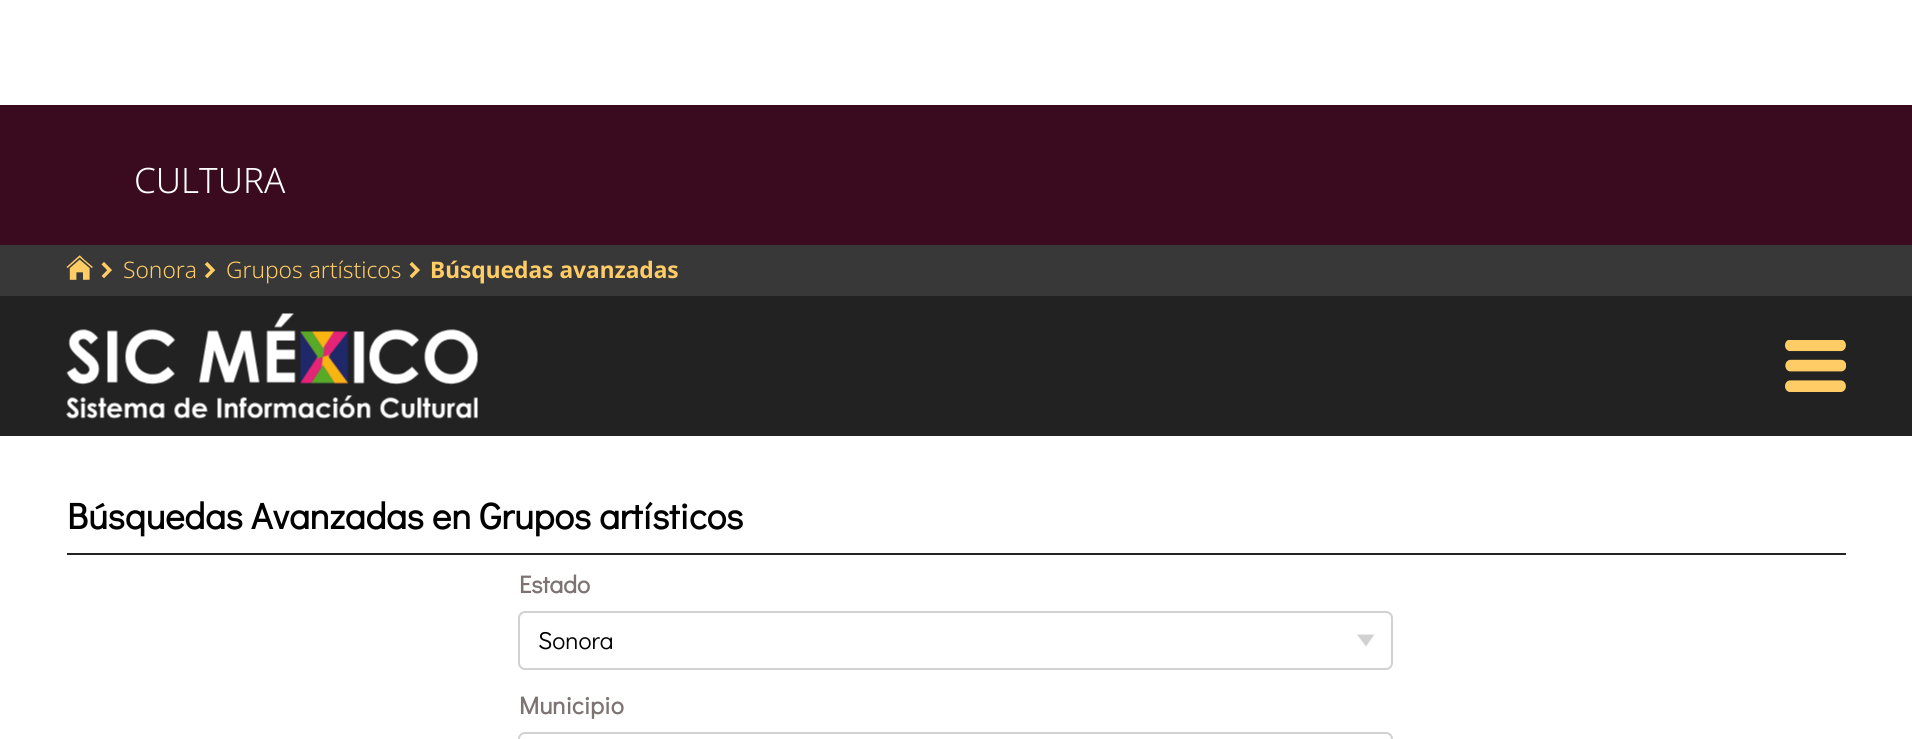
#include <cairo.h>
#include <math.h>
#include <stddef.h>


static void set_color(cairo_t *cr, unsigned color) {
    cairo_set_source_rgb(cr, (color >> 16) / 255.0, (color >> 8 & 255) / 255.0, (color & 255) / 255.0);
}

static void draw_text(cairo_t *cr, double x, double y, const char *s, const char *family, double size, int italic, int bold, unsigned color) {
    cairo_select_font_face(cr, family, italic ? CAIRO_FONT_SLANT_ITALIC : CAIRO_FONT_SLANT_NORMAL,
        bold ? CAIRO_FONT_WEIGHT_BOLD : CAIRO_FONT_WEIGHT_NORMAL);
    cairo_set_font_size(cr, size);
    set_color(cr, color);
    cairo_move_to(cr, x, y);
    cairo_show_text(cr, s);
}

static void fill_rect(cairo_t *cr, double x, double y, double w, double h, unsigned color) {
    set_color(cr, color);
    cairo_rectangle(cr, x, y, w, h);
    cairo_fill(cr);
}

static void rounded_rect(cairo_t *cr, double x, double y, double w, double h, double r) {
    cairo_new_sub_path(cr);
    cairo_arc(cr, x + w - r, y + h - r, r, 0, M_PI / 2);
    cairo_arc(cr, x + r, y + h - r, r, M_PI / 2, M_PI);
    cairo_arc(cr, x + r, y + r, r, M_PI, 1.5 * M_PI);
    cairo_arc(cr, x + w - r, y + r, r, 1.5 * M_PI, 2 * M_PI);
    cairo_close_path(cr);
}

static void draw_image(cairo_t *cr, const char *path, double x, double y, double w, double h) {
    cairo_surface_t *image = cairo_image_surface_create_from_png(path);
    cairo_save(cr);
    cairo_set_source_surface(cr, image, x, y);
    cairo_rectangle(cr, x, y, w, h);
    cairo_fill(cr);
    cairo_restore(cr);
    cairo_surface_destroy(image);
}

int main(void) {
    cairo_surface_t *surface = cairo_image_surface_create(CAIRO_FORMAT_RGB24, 1912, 739);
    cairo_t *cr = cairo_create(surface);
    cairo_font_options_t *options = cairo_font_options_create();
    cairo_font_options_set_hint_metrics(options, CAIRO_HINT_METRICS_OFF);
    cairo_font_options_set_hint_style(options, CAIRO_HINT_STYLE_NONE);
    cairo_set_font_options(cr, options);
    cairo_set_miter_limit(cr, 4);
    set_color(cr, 0xFFFFFF);
    cairo_paint(cr);
    fill_rect(cr, 0, 105, 1912, 140, 0x3A0B1F);
    draw_text(cr, 134, 193, "CULTURA", "Noto Sans Light", 35, 0, 0, 0xFFFFFF);
    fill_rect(cr, 0, 245, 1912, 51, 0x373837);
    draw_image(cr, "assets/img1.png", 66, 255, 27, 25);
    draw_image(cr, "assets/img2.png", 101, 262, 11, 17);
    draw_text(cr, 123, 278, "Sonora", "Noto Sans Light", 22.75, 0, 0, 0xFFCC66);
    draw_image(cr, "assets/img3.png", 204, 261, 12, 18);
    draw_text(cr, 226, 278, "Grupos artísticos", "Noto Sans Light", 22.75, 0, 0, 0xFFCC66);
    draw_image(cr, "assets/img2.png", 409, 262, 11, 17);
    draw_text(cr, 430, 278, "Búsquedas avanzadas", "Noto Sans", 22.75, 0, 1, 0xFFCC66);
    fill_rect(cr, 0, 296, 1912, 140, 0x212221);
    draw_image(cr, "assets/img4.png", 66, 313, 412, 106);
    draw_image(cr, "assets/img5.png", 1785, 340, 61, 52);
    draw_text(cr, 67, 529, "Búsquedas Avanzadas en Grupos artísticos", "Didact Gothic", 36.75, 0, 1, 0x000000);
    fill_rect(cr, 67, 553, 1779, 2, 0x212221);
    draw_text(cr, 519, 593, "Estado", "Didact Gothic", 24.5, 0, 1, 0x7D7373);
    set_color(cr, 0xD1D1D1);
    cairo_new_path(cr);
    cairo_move_to(cr, 1357, 634.5);
    cairo_line_to(cr, 1366, 646.5);
    cairo_line_to(cr, 1374.5, 634.5);
    cairo_close_path(cr);
    cairo_fill(cr);
    rounded_rect(cr, 519, 612, 873, 57, 6);
    cairo_stroke(cr);
    draw_text(cr, 538, 649, "Sonora", "Didact Gothic", 24.5, 0, 0, 0x000000);
    draw_text(cr, 519, 714, "Municipio", "Didact Gothic", 24.5, 0, 1, 0x7D7373);
    rounded_rect(cr, 519, 733, 873, 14, 6);
    set_color(cr, 0xD1D1D1);
    cairo_stroke(cr);
    cairo_surface_write_to_png(surface, "output.png");
    cairo_font_options_destroy(options);
    cairo_destroy(cr);
    cairo_surface_destroy(surface);
    return 0;
}
